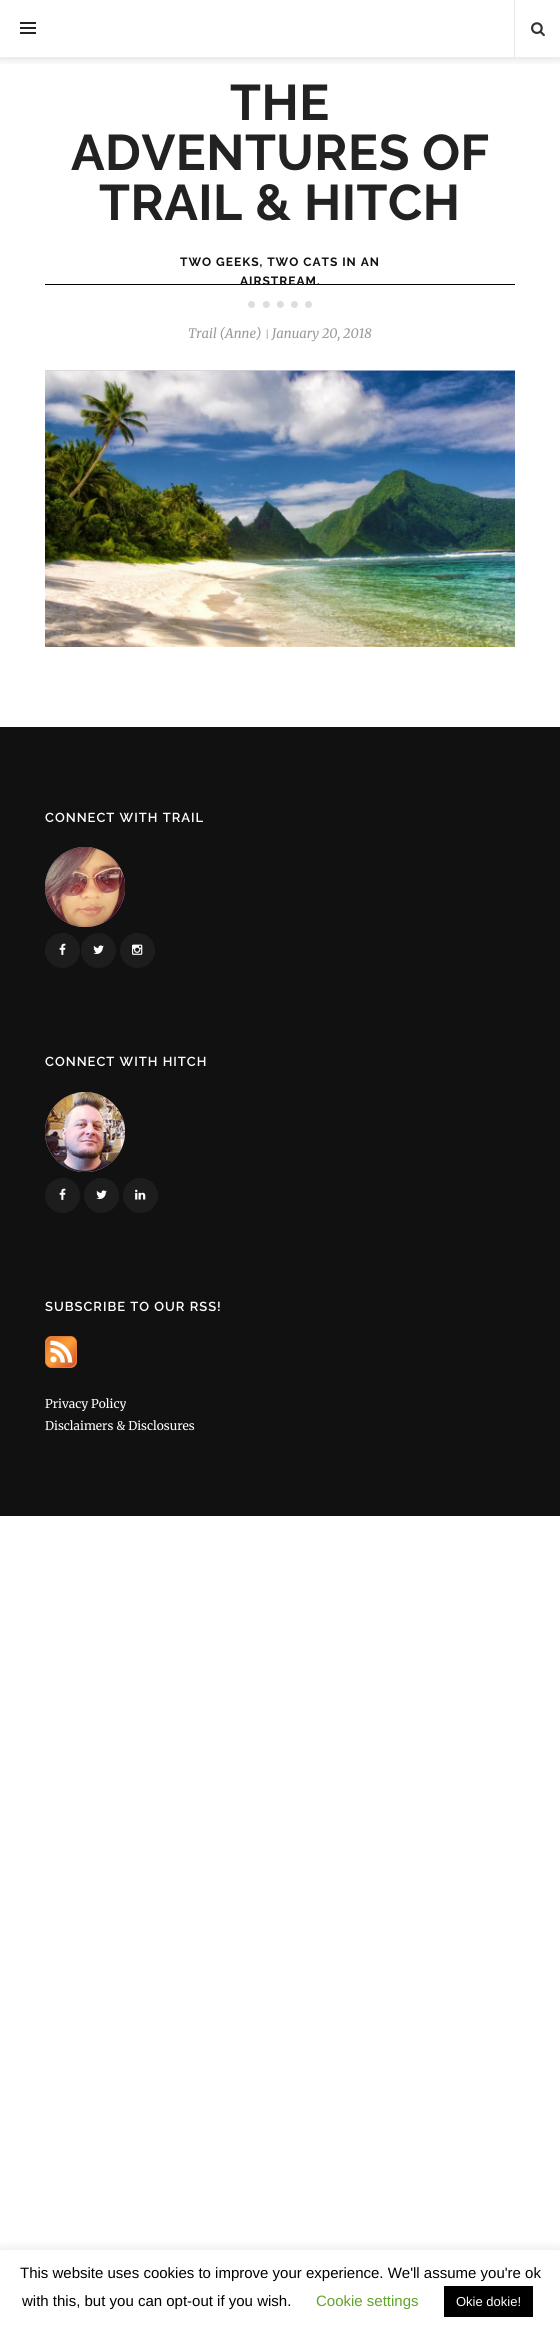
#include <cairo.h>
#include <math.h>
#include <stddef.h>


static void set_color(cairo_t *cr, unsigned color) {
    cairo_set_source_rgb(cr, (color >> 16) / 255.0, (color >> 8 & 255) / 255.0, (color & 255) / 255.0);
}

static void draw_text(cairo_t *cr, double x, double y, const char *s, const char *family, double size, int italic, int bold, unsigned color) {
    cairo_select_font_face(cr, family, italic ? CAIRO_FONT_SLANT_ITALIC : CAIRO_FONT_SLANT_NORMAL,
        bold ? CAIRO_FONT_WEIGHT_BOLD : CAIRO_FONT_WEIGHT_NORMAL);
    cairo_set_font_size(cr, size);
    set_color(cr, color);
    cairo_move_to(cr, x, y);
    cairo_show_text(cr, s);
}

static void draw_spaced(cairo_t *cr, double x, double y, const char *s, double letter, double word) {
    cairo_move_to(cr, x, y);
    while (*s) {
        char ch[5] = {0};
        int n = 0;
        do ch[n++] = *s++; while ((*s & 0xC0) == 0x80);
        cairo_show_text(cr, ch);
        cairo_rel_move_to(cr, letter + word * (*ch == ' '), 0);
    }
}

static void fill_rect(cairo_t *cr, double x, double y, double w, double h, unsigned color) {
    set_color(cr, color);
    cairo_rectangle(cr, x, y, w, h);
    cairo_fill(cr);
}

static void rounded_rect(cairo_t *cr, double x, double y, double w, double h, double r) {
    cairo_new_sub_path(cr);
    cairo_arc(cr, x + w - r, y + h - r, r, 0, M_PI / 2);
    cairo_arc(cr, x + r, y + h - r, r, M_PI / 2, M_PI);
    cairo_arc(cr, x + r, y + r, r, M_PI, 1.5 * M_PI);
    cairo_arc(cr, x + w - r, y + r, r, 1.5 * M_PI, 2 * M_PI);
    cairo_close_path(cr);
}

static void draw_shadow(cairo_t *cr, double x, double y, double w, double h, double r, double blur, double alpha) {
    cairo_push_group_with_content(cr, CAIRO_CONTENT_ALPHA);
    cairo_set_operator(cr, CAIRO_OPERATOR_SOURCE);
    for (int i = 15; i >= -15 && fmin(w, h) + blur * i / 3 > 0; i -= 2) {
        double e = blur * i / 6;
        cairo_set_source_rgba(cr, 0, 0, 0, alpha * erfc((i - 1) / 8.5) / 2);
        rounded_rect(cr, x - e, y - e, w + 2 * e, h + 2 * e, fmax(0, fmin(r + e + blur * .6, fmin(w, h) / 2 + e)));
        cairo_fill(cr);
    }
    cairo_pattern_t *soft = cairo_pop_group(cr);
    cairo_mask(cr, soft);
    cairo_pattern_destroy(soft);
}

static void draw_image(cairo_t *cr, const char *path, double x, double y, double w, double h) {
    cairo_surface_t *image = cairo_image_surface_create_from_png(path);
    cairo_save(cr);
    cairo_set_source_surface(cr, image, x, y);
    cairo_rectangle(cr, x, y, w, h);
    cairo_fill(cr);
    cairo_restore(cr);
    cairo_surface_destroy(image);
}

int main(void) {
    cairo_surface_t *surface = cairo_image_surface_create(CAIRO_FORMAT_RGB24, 560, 2334);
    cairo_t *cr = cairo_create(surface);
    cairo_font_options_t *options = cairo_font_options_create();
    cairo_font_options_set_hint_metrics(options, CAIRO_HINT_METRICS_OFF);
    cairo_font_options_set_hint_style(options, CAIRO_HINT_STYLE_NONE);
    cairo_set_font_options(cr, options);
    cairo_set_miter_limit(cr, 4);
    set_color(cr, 0xFFFFFF);
    cairo_paint(cr);
    cairo_save(cr);
    cairo_rectangle(cr, 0, 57, 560, 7);
    cairo_clip(cr);
    set_color(cr, 0x000000);
    draw_shadow(cr, 0, 1, 560, 57, 0, 5, 0.15);
    cairo_restore(cr);
    fill_rect(cr, 20, 22, 16, 2, 0x222222);
    fill_rect(cr, 20, 27, 16, 2, 0x222222);
    fill_rect(cr, 20, 32, 16, 2, 0x222222);
    fill_rect(cr, 514, 0, 1, 57, 0xE8E8E8);
    draw_image(cr, "assets/img1.png", 531, 22, 14, 15);
    cairo_select_font_face(cr, "Raleway", CAIRO_FONT_SLANT_NORMAL, CAIRO_FONT_WEIGHT_BOLD);
    cairo_set_font_size(cr, 50);
    set_color(cr, 0x222222);
    draw_spaced(cr, 230, 120, "THE", 0.5, 0);
    draw_spaced(cr, 71, 170, "ADVENTURES OF", 0.5, 0);
    draw_spaced(cr, 99, 220, "TRAIL & HITCH", 0.5, 0);
    fill_rect(cr, 45, 284, 470, 1, 0x000000);
    cairo_set_font_size(cr, 12);
    set_color(cr, 0x111111);
    draw_spaced(cr, 180, 266, "TWO GEEKS, TWO CATS IN AN", 1, 0);
    draw_spaced(cr, 240, 285, "AIRSTREAM.", 1, 0);
    draw_image(cr, "assets/img2.png", 248, 301, 64, 7);
    draw_text(cr, 188, 338, "Trail (Anne)", "Merriweather", 13, 1, 0, 0x999999);
    draw_text(cr, 265, 338, "|", "Merriweather", 10, 1, 0, 0x999999);
    draw_text(cr, 272, 338, "January 20, 2018", "Merriweather", 13, 1, 0, 0x999999);
    draw_image(cr, "assets/img3.png", 45, 370, 470, 277);
    fill_rect(cr, 0, 727, 560, 789, 0x111111);
    cairo_select_font_face(cr, "Raleway SemiBold", CAIRO_FONT_SLANT_NORMAL, CAIRO_FONT_WEIGHT_NORMAL);
    set_color(cr, 0xFFFFFF);
    draw_spaced(cr, 45, 822, "CONNECT WITH TRAIL", 1, 0);
    draw_image(cr, "assets/img4.png", 45, 847, 80, 80);
    set_color(cr, 0x1D1D1D);
    cairo_arc(cr, 62.5, 950.5, 17.5, 0, 2 * M_PI);
    cairo_fill(cr);
    draw_image(cr, "assets/img5.png", 59, 943, 7, 12);
    cairo_arc(cr, 98.5, 950.5, 17.5, 0, 2 * M_PI);
    cairo_fill(cr);
    draw_image(cr, "assets/img6.png", 93, 945, 11, 9);
    cairo_arc(cr, 137.5, 950.5, 17.5, 0, 2 * M_PI);
    cairo_fill(cr);
    draw_image(cr, "assets/img7.png", 132, 944, 11, 11);
    set_color(cr, 0xFFFFFF);
    draw_spaced(cr, 45, 1066, "CONNECT WITH HITCH", 1, 0);
    draw_image(cr, "assets/img8.png", 45, 1092, 80, 80);
    set_color(cr, 0x1D1D1D);
    cairo_arc(cr, 62.5, 1195.5, 17.5, 0, 2 * M_PI);
    cairo_fill(cr);
    draw_image(cr, "assets/img5.png", 59, 1188, 7, 12);
    cairo_arc(cr, 101.5, 1195.5, 17.5, 0, 2 * M_PI);
    cairo_fill(cr);
    draw_image(cr, "assets/img6.png", 96, 1190, 11, 9);
    cairo_arc(cr, 140.5, 1195.5, 17.5, 0, 2 * M_PI);
    cairo_fill(cr);
    draw_image(cr, "assets/img9.png", 135, 1189, 11, 11);
    set_color(cr, 0xFFFFFF);
    draw_spaced(cr, 45, 1311, "SUBSCRIBE TO OUR RSS!", 1, 0);
    draw_image(cr, "assets/img10.png", 45, 1336, 32, 32);
    draw_text(cr, 45, 1408, "Privacy Policy", "Merriweather", 12, 0, 0, 0xFFFFFF);
    draw_text(cr, 45, 1430, "Disclaimers & Disclosures", "Merriweather", 12, 0, 0, 0xFFFFFF);
    set_color(cr, 0xACABAB);
    draw_shadow(cr, 0, 2249, 560, 84, 0, 5, 0.3);
    fill_rect(cr, 0, 2250, 560, 84, 0xFFFFFF);
    draw_text(cr, 20, 2278, "This website uses cookies to improve your experience. We'll assume you're ok", "Liberation Sans", 15, 0, 0, 0x000000);
    draw_text(cr, 22, 2306, "with this, but you can opt-out if you wish.", "Liberation Sans", 15, 0, 0, 0x000000);
    draw_text(cr, 316, 2306, "Cookie settings", "Liberation Sans", 15, 0, 0, 0x62A329);
    fill_rect(cr, 444, 2286, 89, 31, 0x000000);
    draw_text(cr, 456, 2306, "Okie dokie!", "Liberation Sans", 13, 0, 0, 0xFFFFFF);
    cairo_surface_write_to_png(surface, "output.png");
    cairo_font_options_destroy(options);
    cairo_destroy(cr);
    cairo_surface_destroy(surface);
    return 0;
}
